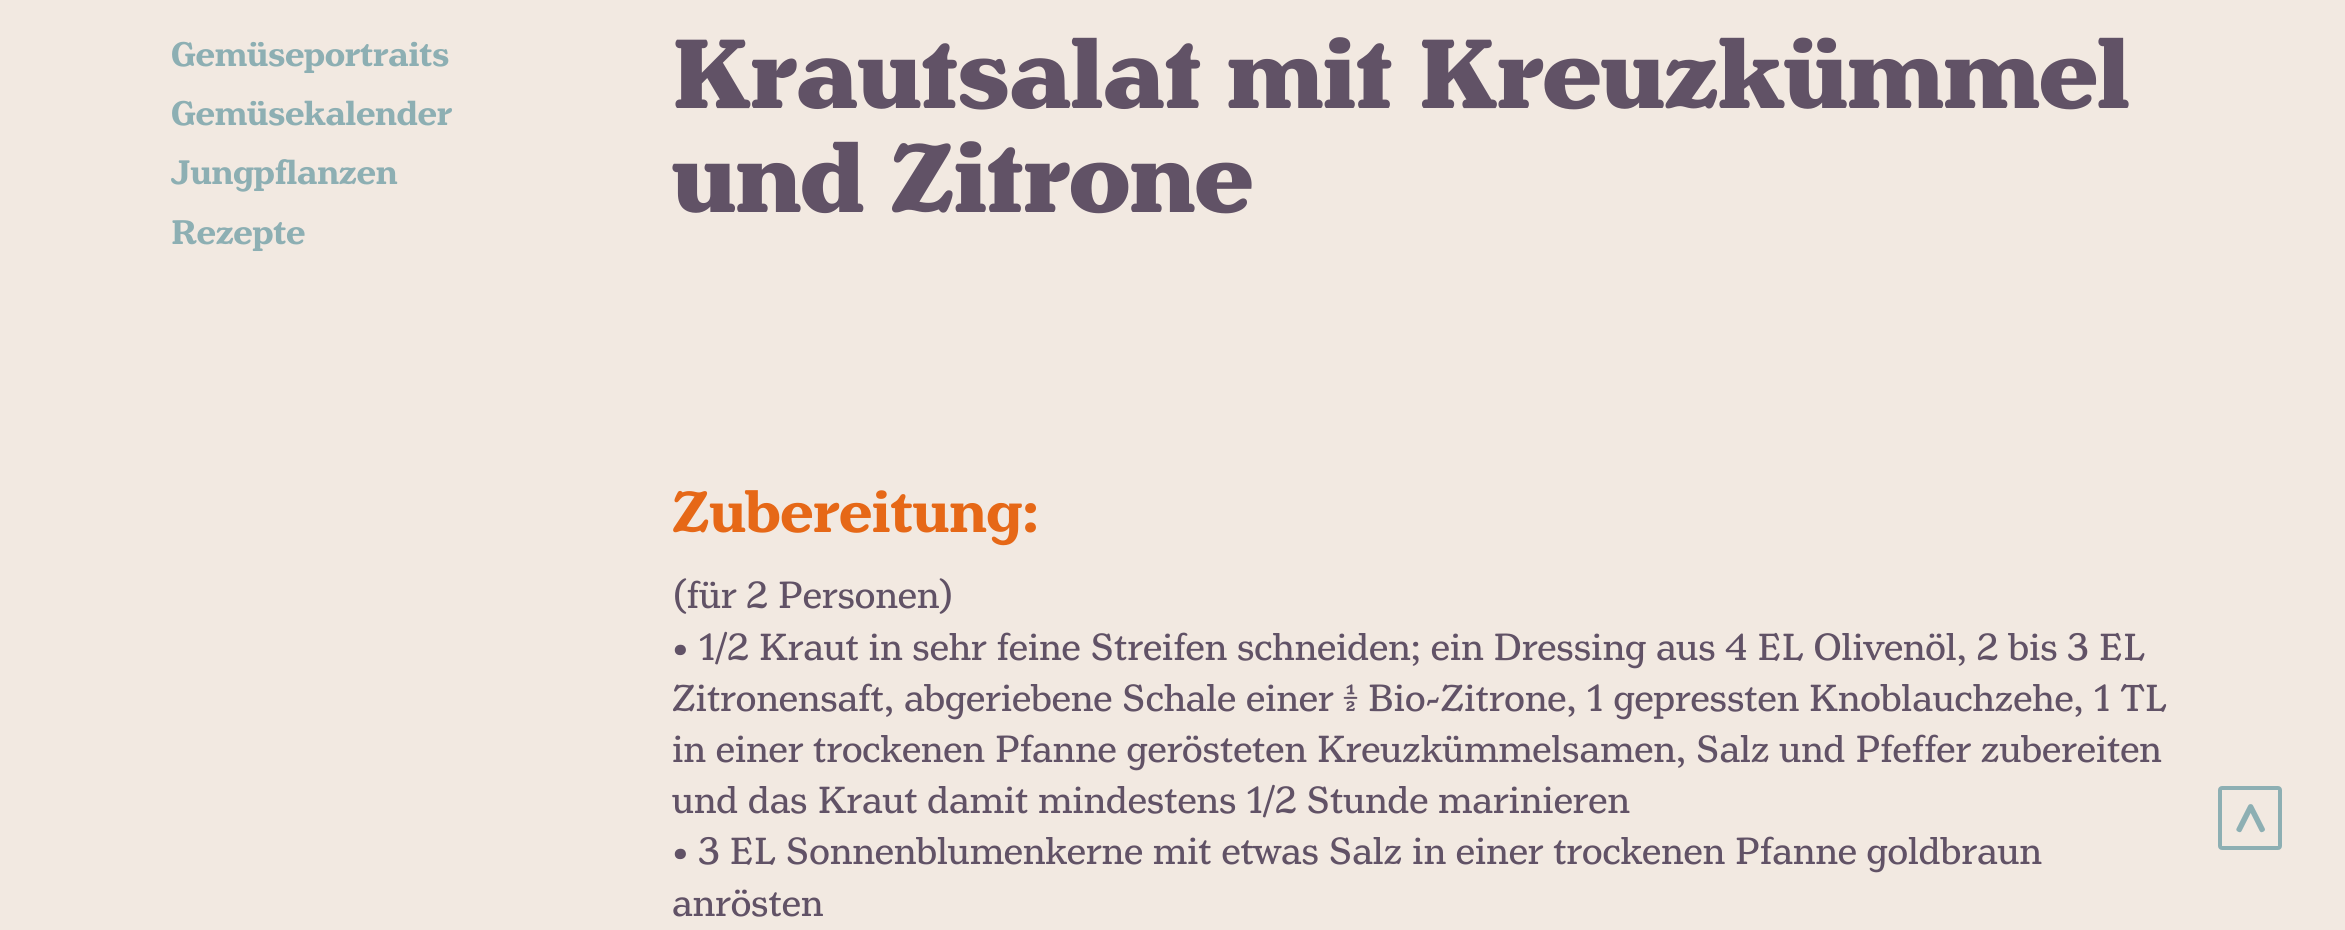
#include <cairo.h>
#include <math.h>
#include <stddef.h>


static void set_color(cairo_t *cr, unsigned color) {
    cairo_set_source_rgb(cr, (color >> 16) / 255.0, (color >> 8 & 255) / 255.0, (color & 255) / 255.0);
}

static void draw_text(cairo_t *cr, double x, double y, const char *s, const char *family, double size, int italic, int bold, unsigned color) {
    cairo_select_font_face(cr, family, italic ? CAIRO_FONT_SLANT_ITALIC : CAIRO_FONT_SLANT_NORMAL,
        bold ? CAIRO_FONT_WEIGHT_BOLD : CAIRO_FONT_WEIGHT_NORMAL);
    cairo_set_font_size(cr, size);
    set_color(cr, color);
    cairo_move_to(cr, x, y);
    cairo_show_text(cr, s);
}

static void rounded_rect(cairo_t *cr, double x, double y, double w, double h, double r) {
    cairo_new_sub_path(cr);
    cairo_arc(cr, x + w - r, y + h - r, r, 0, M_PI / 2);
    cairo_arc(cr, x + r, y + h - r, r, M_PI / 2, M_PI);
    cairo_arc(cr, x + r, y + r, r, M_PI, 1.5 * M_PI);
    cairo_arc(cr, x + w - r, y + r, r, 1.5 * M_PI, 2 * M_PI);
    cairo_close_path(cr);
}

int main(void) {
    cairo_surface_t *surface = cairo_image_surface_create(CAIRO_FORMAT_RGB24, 2345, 930);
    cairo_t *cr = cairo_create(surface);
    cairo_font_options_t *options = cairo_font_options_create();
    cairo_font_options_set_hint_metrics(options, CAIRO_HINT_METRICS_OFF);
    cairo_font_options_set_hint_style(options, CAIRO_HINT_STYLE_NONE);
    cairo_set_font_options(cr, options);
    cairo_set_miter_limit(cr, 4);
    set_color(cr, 0xF2E9E1);
    cairo_paint(cr);
    draw_text(cr, 171, 66, "Gemüseportraits", "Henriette", 36, 0, 1, 0x8DAFB3);
    draw_text(cr, 171, 125, "Gemüsekalender", "Henriette", 36, 0, 1, 0x8DAFB3);
    draw_text(cr, 171, 184, "Jungpflanzen", "Henriette", 36, 0, 1, 0x8DAFB3);
    draw_text(cr, 171, 244, "Rezepte", "Henriette", 36, 0, 1, 0x8DAFB3);
    draw_text(cr, 672, 108, "Krautsalat mit Kreuzkümmel", "Henriette Black", 104, 0, 0, 0x615266);
    draw_text(cr, 672, 212, "und Zitrone", "Henriette Black", 104, 0, 0, 0x615266);
    draw_text(cr, 672, 532, "Zubereitung:", "Henriette", 62, 0, 1, 0xE66817);
    draw_text(cr, 672, 608, "(für 2 Personen)", "Henriette", 40, 0, 0, 0x615266);
    draw_text(cr, 672, 660, "• 1/2 Kraut in sehr feine Streifen schneiden; ein Dressing aus 4 EL Olivenöl, 2 bis 3 EL", "Henriette", 40, 0, 0, 0x615266);
    draw_text(cr, 672, 711, "Zitronensaft, abgeriebene Schale einer ½ Bio-Zitrone, 1 gepressten Knoblauchzehe, 1 TL", "Henriette", 40, 0, 0, 0x615266);
    draw_text(cr, 672, 762, "in einer trockenen Pfanne gerösteten Kreuzkümmelsamen, Salz und Pfeffer zubereiten", "Henriette", 40, 0, 0, 0x615266);
    draw_text(cr, 672, 813, "und das Kraut damit mindestens 1/2 Stunde marinieren", "Henriette", 40, 0, 0, 0x615266);
    draw_text(cr, 672, 864, "• 3 EL Sonnenblumenkerne mit etwas Salz in einer trockenen Pfanne goldbraun", "Henriette", 40, 0, 0, 0x615266);
    draw_text(cr, 672, 916, "anrösten", "Henriette", 40, 0, 0, 0x615266);
    rounded_rect(cr, 2220, 788, 60, 60, 2);
    set_color(cr, 0x8DAFB3);
    cairo_set_line_width(cr, 4);
    cairo_stroke(cr);
    draw_text(cr, 2234, 844, "^", "Henriette", 60, 0, 1, 0x8DAFB3);
    cairo_surface_write_to_png(surface, "output.png");
    cairo_font_options_destroy(options);
    cairo_destroy(cr);
    cairo_surface_destroy(surface);
    return 0;
}
